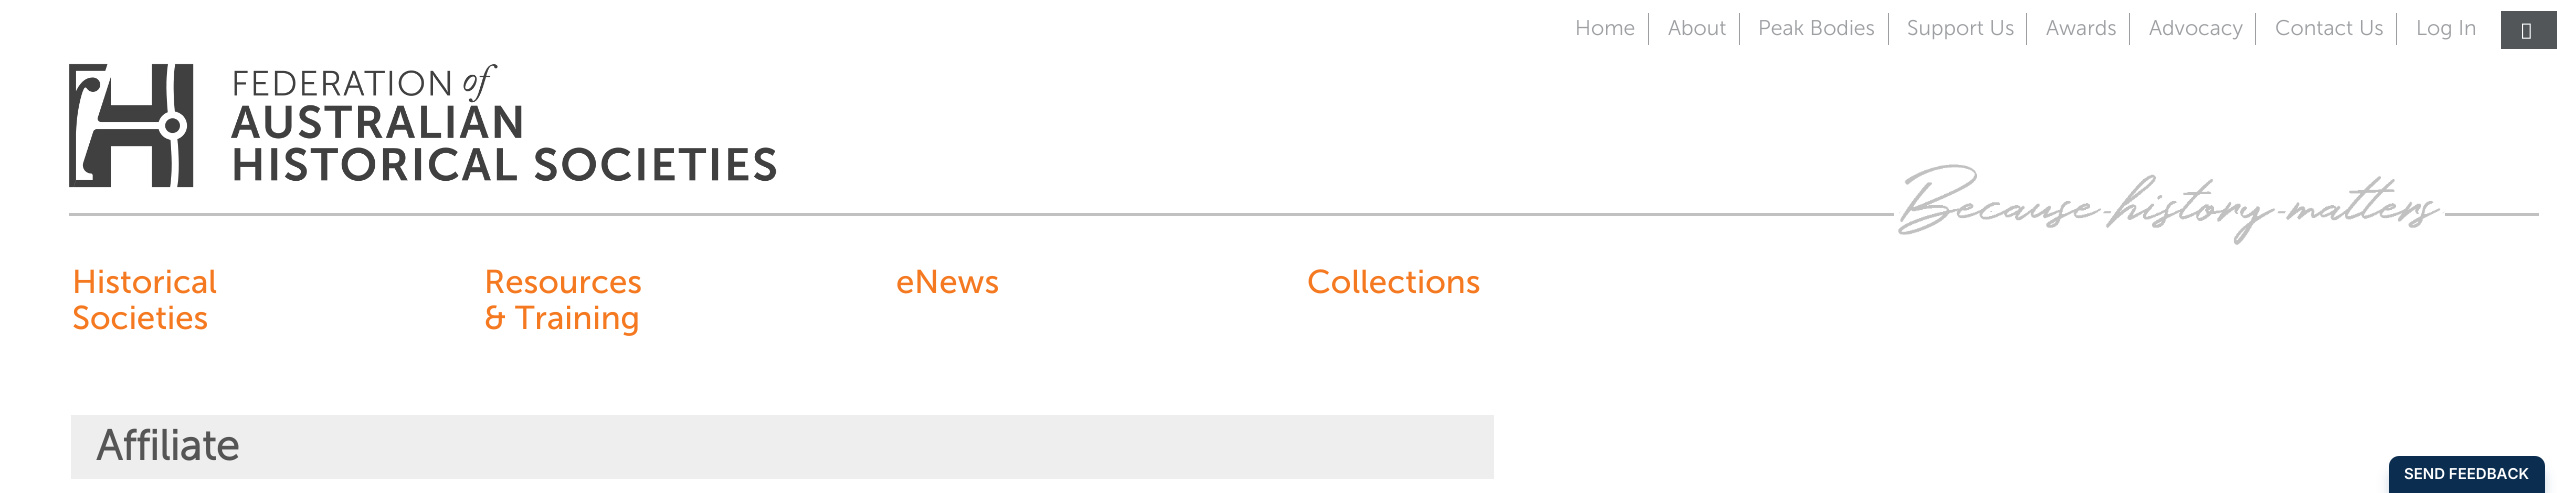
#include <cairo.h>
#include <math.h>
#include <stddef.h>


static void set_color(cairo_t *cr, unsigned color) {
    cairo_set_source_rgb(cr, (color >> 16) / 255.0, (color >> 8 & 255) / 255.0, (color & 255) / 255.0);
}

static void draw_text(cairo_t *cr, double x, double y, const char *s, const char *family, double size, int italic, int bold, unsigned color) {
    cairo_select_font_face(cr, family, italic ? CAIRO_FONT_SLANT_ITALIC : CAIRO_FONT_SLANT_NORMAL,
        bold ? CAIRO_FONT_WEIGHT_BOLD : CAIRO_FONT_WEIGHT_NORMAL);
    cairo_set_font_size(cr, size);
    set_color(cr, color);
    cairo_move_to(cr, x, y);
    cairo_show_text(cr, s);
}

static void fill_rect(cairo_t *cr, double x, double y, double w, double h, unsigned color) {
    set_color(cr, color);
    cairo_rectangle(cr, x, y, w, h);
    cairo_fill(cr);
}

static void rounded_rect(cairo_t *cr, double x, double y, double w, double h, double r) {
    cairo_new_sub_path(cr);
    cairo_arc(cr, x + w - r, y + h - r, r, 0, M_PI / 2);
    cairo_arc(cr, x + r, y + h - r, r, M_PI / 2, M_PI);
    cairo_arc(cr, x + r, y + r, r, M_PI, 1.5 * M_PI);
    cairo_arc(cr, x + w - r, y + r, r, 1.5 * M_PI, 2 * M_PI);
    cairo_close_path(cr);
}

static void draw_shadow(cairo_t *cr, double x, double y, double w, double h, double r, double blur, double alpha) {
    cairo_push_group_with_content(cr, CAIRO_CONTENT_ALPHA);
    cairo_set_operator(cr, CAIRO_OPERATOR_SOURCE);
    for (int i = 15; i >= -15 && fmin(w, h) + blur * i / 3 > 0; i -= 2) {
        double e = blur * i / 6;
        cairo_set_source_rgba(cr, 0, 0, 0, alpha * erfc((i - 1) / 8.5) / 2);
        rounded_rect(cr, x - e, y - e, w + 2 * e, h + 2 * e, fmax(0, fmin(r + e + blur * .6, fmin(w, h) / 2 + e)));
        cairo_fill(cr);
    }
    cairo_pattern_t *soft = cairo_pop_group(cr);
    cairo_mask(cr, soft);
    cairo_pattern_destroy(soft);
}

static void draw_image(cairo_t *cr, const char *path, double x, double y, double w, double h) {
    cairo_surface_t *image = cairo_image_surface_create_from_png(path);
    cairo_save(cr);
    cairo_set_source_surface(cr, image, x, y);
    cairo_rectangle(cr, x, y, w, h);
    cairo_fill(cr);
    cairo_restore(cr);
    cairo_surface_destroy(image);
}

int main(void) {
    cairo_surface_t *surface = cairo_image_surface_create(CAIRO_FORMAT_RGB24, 2557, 493);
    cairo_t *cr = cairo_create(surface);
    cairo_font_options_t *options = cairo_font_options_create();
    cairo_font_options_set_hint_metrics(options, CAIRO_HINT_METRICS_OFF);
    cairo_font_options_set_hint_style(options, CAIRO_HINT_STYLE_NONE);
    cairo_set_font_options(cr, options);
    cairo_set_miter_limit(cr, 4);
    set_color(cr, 0xFFFFFF);
    cairo_paint(cr);
    fill_rect(cr, 1648, 13, 1, 32, 0x9D9FA2);
    draw_text(cr, 1575, 35, "Home", "Museo Sans Light", 21.25, 0, 0, 0x9D9FA2);
    fill_rect(cr, 1739, 13, 1, 32, 0x9D9FA2);
    draw_text(cr, 1668, 35, "About", "Museo Sans Light", 21.25, 0, 0, 0x9D9FA2);
    fill_rect(cr, 1888, 13, 1, 32, 0x9D9FA2);
    draw_text(cr, 1758, 35, "Peak Bodies", "Museo Sans Light", 21.25, 0, 0, 0x9D9FA2);
    fill_rect(cr, 2026, 13, 1, 32, 0x9D9FA2);
    draw_text(cr, 1907, 35, "Support Us", "Museo Sans Light", 21.25, 0, 0, 0x9D9FA2);
    fill_rect(cr, 2129, 13, 1, 32, 0x9D9FA2);
    draw_text(cr, 2046, 35, "Awards", "Museo Sans Light", 21.25, 0, 0, 0x9D9FA2);
    fill_rect(cr, 2255, 13, 1, 32, 0x9D9FA2);
    draw_text(cr, 2149, 35, "Advocacy", "Museo Sans Light", 21.25, 0, 0, 0x9D9FA2);
    fill_rect(cr, 2396, 13, 1, 32, 0x9D9FA2);
    draw_text(cr, 2275, 35, "Contact Us", "Museo Sans Light", 21.25, 0, 0, 0x9D9FA2);
    draw_text(cr, 2416, 35, "Log In", "Museo Sans Light", 21.25, 0, 0, 0x9D9FA2);
    fill_rect(cr, 2501, 11, 56, 38, 0x525659);
    draw_image(cr, "assets/img1.png", 2522, 23, 9, 16);
    draw_image(cr, "assets/img2.png", 69, 63, 708, 125);
    fill_rect(cr, 69, 213, 1825, 3, 0xC1C1C1);
    fill_rect(cr, 2439, 213, 100, 3, 0xC1C1C1);
    fill_rect(cr, 2439, 213, 6, 3, 0xFFFFFF);
    draw_image(cr, "assets/img3.png", 1898, 164, 547, 81);
    draw_text(cr, 72, 293, "Historical", "Museo Sans", 33, 0, 0, 0xF47920);
    draw_text(cr, 72, 329, "Societies", "Museo Sans", 33, 0, 0, 0xF47920);
    draw_text(cr, 484, 293, "Resources", "Museo Sans", 33, 0, 0, 0xF47920);
    draw_text(cr, 484, 329, "& Training", "Museo Sans", 33, 0, 0, 0xF47920);
    draw_text(cr, 896, 293, "eNews", "Museo Sans", 33, 0, 0, 0xF47920);
    draw_text(cr, 1307, 293, "Collections", "Museo Sans", 33, 0, 0, 0xF47920);
    fill_rect(cr, 71, 415, 1423, 64, 0xEEEEEE);
    draw_text(cr, 96, 460, "Affiliate", "Museo Sans", 42.5, 0, 1, 0x555555);
    set_color(cr, 0x003980);
    draw_shadow(cr, 2389, 469, 156, 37, 10, 6, 0.2);
    set_color(cr, 0x0A2D50);
    cairo_new_path(cr);
    cairo_move_to(cr, 2399, 456);
    cairo_line_to(cr, 2535, 456);
    cairo_curve_to(cr, 2540.5, 456, 2545, 460.5, 2545, 466);
    cairo_line_to(cr, 2545, 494);
    cairo_line_to(cr, 2389, 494);
    cairo_line_to(cr, 2389, 466);
    cairo_curve_to(cr, 2389, 460.5, 2393.5, 456, 2399, 456);
    cairo_close_path(cr);
    cairo_fill(cr);
    draw_text(cr, 2404, 479, "SEND FEEDBACK", "Inter SemiBold", 15, 0, 0, 0xFFFFFF);
    cairo_surface_write_to_png(surface, "output.png");
    cairo_font_options_destroy(options);
    cairo_destroy(cr);
    cairo_surface_destroy(surface);
    return 0;
}
